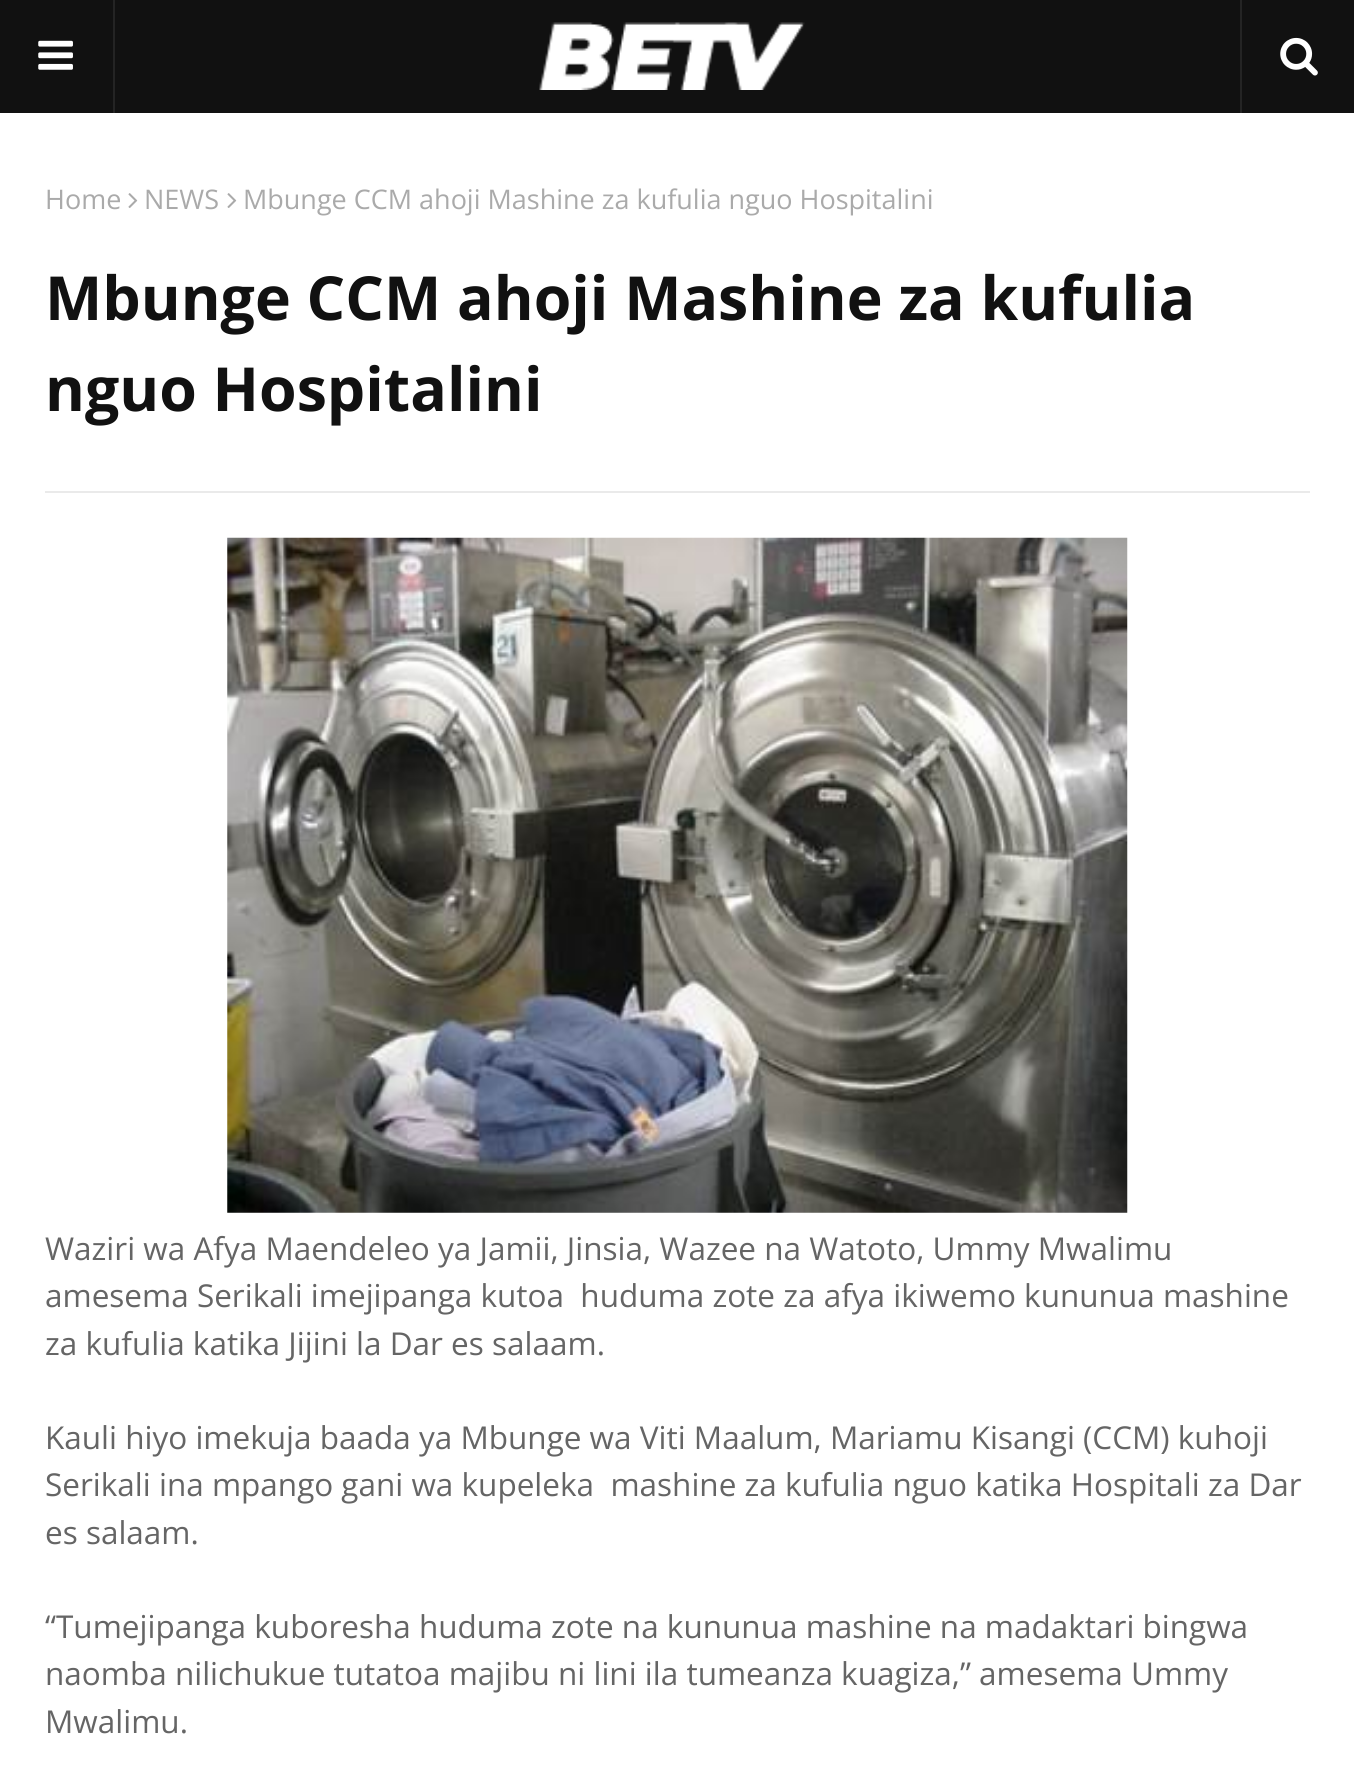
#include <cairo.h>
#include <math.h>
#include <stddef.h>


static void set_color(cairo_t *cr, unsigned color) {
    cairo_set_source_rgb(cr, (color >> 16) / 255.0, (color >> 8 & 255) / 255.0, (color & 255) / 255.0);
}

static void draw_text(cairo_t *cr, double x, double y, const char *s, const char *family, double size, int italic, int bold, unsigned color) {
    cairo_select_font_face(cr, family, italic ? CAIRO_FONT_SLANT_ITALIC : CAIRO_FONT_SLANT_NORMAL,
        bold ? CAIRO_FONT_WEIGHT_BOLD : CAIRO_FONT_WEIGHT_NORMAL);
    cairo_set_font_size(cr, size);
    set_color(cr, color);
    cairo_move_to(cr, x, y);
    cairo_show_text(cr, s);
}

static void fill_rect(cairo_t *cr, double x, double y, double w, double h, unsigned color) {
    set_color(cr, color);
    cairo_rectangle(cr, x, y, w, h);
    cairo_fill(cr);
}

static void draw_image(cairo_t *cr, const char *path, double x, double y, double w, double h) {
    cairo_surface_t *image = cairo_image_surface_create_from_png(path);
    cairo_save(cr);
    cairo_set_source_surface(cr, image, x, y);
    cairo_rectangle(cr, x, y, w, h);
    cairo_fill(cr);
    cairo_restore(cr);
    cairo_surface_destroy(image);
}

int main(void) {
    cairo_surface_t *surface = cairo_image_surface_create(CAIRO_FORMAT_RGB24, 1354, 1792);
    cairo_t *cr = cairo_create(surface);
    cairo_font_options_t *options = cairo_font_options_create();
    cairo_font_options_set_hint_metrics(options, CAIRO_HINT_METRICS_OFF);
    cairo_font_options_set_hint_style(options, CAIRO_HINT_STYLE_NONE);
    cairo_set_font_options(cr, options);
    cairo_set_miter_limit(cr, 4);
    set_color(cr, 0xFFFFFF);
    cairo_paint(cr);
    fill_rect(cr, 0, 0, 1354, 113, 0x111111);
    fill_rect(cr, 113, 0, 2, 113, 0x242424);
    draw_image(cr, "assets/img1.png", 38, 40, 35, 30);
    draw_image(cr, "assets/img2.png", 539, 22, 266, 68);
    fill_rect(cr, 1240, 0, 2, 113, 0x242424);
    draw_image(cr, "assets/img3.png", 1280, 37, 38, 39);
    draw_text(cr, 45, 209, "Home", "Open Sans", 27, 0, 0, 0xAAAAAA);
    draw_image(cr, "assets/img4.png", 128, 193, 10, 15);
    draw_text(cr, 144, 209, "NEWS", "Open Sans", 27, 0, 0, 0xAAAAAA);
    draw_image(cr, "assets/img4.png", 227, 193, 10, 15);
    draw_text(cr, 243, 209, "Mbunge CCM ahoji Mashine za kufulia nguo Hospitalini", "Open Sans", 27, 0, 0, 0xAAAAAA);
    draw_text(cr, 45, 320, "Mbunge CCM ahoji Mashine za kufulia", "Open Sans", 60.75, 0, 1, 0x111111);
    draw_text(cr, 45, 411, "nguo Hospitalini", "Open Sans", 60.75, 0, 1, 0x111111);
    fill_rect(cr, 45, 491, 1265, 2, 0xEAEAEA);
    draw_image(cr, "assets/img5.png", 227, 537, 901, 676);
    draw_text(cr, 45, 1260, "Waziri wa Afya Maendeleo ya Jamii, Jinsia, Wazee na Watoto, Ummy Mwalimu", "Open Sans", 31.5, 0, 0, 0x656565);
    draw_text(cr, 45, 1307, "amesema Serikali imejipanga kutoa  huduma zote za afya ikiwemo kununua mashine", "Open Sans", 31.5, 0, 0, 0x656565);
    draw_text(cr, 45, 1355, "za kufulia katika Jijini la Dar es salaam.", "Open Sans", 31.5, 0, 0, 0x656565);
    draw_text(cr, 45, 1449, "Kauli hiyo imekuja baada ya Mbunge wa Viti Maalum, Mariamu Kisangi (CCM) kuhoji", "Open Sans", 31.5, 0, 0, 0x656565);
    draw_text(cr, 45, 1496, "Serikali ina mpango gani wa kupeleka  mashine za kufulia nguo katika Hospitali za Dar", "Open Sans", 31.5, 0, 0, 0x656565);
    draw_text(cr, 45, 1544, "es salaam.", "Open Sans", 31.5, 0, 0, 0x656565);
    draw_text(cr, 45, 1638, "“Tumejipanga kuboresha huduma zote na kununua mashine na madaktari bingwa", "Open Sans", 31.5, 0, 0, 0x656565);
    draw_text(cr, 45, 1685, "naomba nilichukue tutatoa majibu ni lini ila tumeanza kuagiza,” amesema Ummy", "Open Sans", 31.5, 0, 0, 0x656565);
    draw_text(cr, 45, 1733, "Mwalimu.", "Open Sans", 31.5, 0, 0, 0x656565);
    cairo_surface_write_to_png(surface, "output.png");
    cairo_font_options_destroy(options);
    cairo_destroy(cr);
    cairo_surface_destroy(surface);
    return 0;
}
